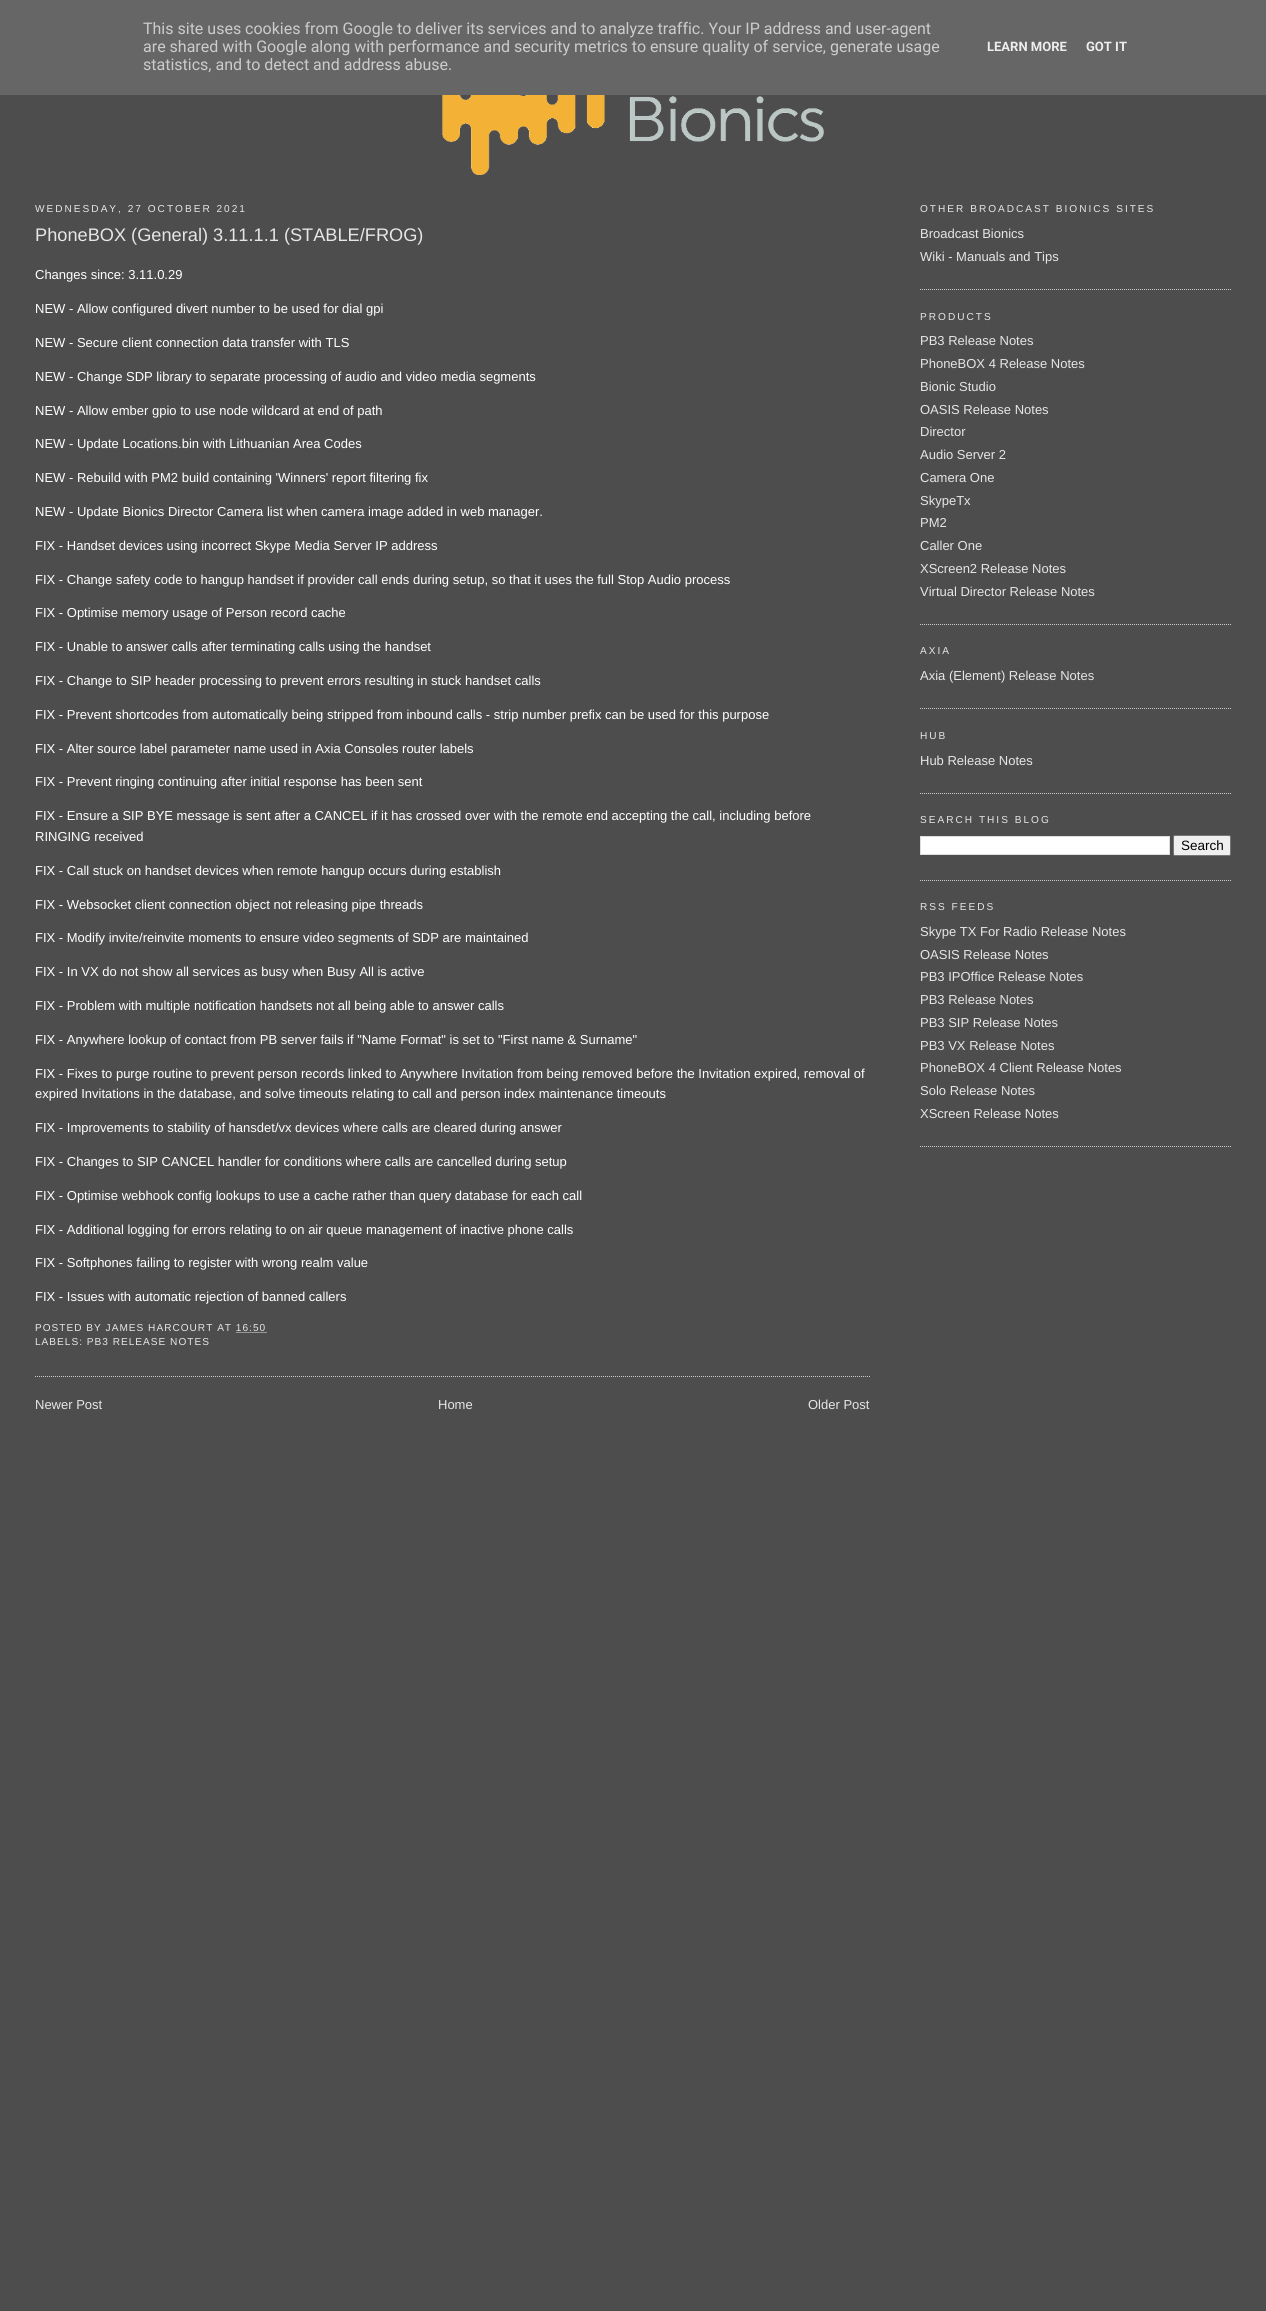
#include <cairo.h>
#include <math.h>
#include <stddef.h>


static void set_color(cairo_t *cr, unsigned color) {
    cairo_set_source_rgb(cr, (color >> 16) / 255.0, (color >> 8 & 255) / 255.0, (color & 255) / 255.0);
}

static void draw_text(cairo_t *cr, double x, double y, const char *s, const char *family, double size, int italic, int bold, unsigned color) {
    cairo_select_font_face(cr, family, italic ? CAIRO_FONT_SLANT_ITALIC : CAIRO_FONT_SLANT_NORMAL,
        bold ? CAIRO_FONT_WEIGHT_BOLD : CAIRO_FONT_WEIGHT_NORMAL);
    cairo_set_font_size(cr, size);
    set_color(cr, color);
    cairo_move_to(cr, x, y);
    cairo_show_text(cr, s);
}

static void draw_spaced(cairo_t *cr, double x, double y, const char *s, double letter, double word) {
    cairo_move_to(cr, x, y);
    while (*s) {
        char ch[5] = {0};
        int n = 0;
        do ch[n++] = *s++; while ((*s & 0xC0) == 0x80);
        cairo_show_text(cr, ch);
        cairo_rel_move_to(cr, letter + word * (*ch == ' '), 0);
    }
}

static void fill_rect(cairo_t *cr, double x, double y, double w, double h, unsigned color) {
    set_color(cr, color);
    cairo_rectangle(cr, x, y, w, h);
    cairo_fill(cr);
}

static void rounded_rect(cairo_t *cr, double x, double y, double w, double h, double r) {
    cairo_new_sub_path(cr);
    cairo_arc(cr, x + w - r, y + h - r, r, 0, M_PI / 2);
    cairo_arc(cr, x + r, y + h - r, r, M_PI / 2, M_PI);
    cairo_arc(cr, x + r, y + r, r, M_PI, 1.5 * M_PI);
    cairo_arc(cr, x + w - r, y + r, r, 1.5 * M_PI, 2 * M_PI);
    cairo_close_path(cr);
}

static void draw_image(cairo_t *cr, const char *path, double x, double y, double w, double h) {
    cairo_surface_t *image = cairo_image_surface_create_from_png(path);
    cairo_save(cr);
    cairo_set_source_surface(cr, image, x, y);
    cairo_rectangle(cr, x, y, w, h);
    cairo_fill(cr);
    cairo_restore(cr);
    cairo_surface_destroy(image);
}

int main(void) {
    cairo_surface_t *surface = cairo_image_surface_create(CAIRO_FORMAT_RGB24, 1266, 2311);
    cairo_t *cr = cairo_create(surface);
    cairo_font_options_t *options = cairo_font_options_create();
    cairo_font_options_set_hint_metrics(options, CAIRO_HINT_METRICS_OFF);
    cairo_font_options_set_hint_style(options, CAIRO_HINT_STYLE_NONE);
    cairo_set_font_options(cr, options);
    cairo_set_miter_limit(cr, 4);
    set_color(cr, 0x4E4D4D);
    cairo_paint(cr);
    fill_rect(cr, 0, 0, 1266, 95, 0x666666);
    draw_text(cr, 143, 34, "This site uses cookies from Google to deliver its services and to analyze traffic. Your IP address and user-agent", "Roboto", 16, 0, 0, 0xCCCCCC);
    draw_text(cr, 143, 52, "are shared with Google along with performance and security metrics to ensure quality of service, generate usage", "Roboto", 16, 0, 0, 0xCCCCCC);
    draw_text(cr, 143, 70, "statistics, and to detect and address abuse.", "Roboto", 16, 0, 0, 0xCCCCCC);
    draw_text(cr, 987, 51, "LEARN MORE", "Roboto", 13, 0, 1, 0xEEEEEE);
    draw_text(cr, 1086, 51, "GOT IT", "Roboto", 13, 0, 1, 0xEEEEEE);
    draw_image(cr, "assets/img1.png", 442, 95, 382, 80);
    cairo_select_font_face(cr, "Liberation Sans", CAIRO_FONT_SLANT_NORMAL, CAIRO_FONT_WEIGHT_NORMAL);
    cairo_set_font_size(cr, 10.1);
    set_color(cr, 0xE6E6E6);
    draw_spaced(cr, 35, 212, "WEDNESDAY, 27 OCTOBER 2021", 2, 0);
    cairo_new_path(cr);
    cairo_move_to(cr, 35, 1376.5);
    cairo_line_to(cr, 870, 1376.5);
    set_color(cr, 0xCCCCCC);
    cairo_set_line_width(cr, 1);
    cairo_set_dash(cr, (double[]){1, 1}, 2, 0);
    cairo_stroke(cr);
    draw_text(cr, 35, 241, "PhoneBOX (General) 3.11.1.1 (STABLE/FROG)", "Liberation Sans", 18.2, 0, 0, 0xE6E6E6);
    draw_text(cr, 35, 279, "Changes since: 3.11.0.29", "Liberation Sans", 13, 0, 0, 0xFFFFFF);
    draw_text(cr, 35, 313, "NEW - Allow configured divert number to be used for dial gpi", "Liberation Sans", 13, 0, 0, 0xFFFFFF);
    draw_text(cr, 35, 347, "NEW - Secure client connection data transfer with TLS", "Liberation Sans", 13, 0, 0, 0xFFFFFF);
    draw_text(cr, 35, 381, "NEW - Change SDP library to separate processing of audio and video media segments", "Liberation Sans", 13, 0, 0, 0xFFFFFF);
    draw_text(cr, 35, 415, "NEW - Allow ember gpio to use node wildcard at end of path", "Liberation Sans", 13, 0, 0, 0xFFFFFF);
    draw_text(cr, 35, 448, "NEW - Update Locations.bin with Lithuanian Area Codes", "Liberation Sans", 13, 0, 0, 0xFFFFFF);
    draw_text(cr, 35, 482, "NEW - Rebuild with PM2 build containing 'Winners' report filtering fix", "Liberation Sans", 13, 0, 0, 0xFFFFFF);
    draw_text(cr, 35, 516, "NEW - Update Bionics Director Camera list when camera image added in web manager.", "Liberation Sans", 13, 0, 0, 0xFFFFFF);
    draw_text(cr, 35, 550, "FIX - Handset devices using incorrect Skype Media Server IP address", "Liberation Sans", 13, 0, 0, 0xFFFFFF);
    draw_text(cr, 35, 584, "FIX - Change safety code to hangup handset if provider call ends during setup, so that it uses the full Stop Audio process", "Liberation Sans", 13, 0, 0, 0xFFFFFF);
    draw_text(cr, 35, 617, "FIX - Optimise memory usage of Person record cache", "Liberation Sans", 13, 0, 0, 0xFFFFFF);
    draw_text(cr, 35, 651, "FIX - Unable to answer calls after terminating calls using the handset", "Liberation Sans", 13, 0, 0, 0xFFFFFF);
    draw_text(cr, 35, 685, "FIX - Change to SIP header processing to prevent errors resulting in stuck handset calls", "Liberation Sans", 13, 0, 0, 0xFFFFFF);
    draw_text(cr, 35, 719, "FIX - Prevent shortcodes from automatically being stripped from inbound calls - strip number prefix can be used for this purpose", "Liberation Sans", 13, 0, 0, 0xFFFFFF);
    draw_text(cr, 35, 753, "FIX - Alter source label parameter name used in Axia Consoles router labels", "Liberation Sans", 13, 0, 0, 0xFFFFFF);
    draw_text(cr, 35, 786, "FIX - Prevent ringing continuing after initial response has been sent", "Liberation Sans", 13, 0, 0, 0xFFFFFF);
    draw_text(cr, 35, 820, "FIX - Ensure a SIP BYE message is sent after a CANCEL if it has crossed over with the remote end accepting the call, including before", "Liberation Sans", 13, 0, 0, 0xFFFFFF);
    draw_text(cr, 35, 841, "RINGING received", "Liberation Sans", 13, 0, 0, 0xFFFFFF);
    draw_text(cr, 35, 875, "FIX - Call stuck on handset devices when remote hangup occurs during establish", "Liberation Sans", 13, 0, 0, 0xFFFFFF);
    draw_text(cr, 35, 909, "FIX - Websocket client connection object not releasing pipe threads", "Liberation Sans", 13, 0, 0, 0xFFFFFF);
    draw_text(cr, 35, 942, "FIX - Modify invite/reinvite moments to ensure video segments of SDP are maintained", "Liberation Sans", 13, 0, 0, 0xFFFFFF);
    draw_text(cr, 35, 976, "FIX - In VX do not show all services as busy when Busy All is active", "Liberation Sans", 13, 0, 0, 0xFFFFFF);
    draw_text(cr, 35, 1010, "FIX - Problem with multiple notification handsets not all being able to answer calls", "Liberation Sans", 13, 0, 0, 0xFFFFFF);
    draw_text(cr, 35, 1044, "FIX - Anywhere lookup of contact from PB server fails if \"Name Format\" is set to \"First name & Surname\"", "Liberation Sans", 13, 0, 0, 0xFFFFFF);
    draw_text(cr, 35, 1078, "FIX - Fixes to purge routine to prevent person records linked to Anywhere Invitation from being removed before the Invitation expired, removal of", "Liberation Sans", 13, 0, 0, 0xFFFFFF);
    draw_text(cr, 35, 1098, "expired Invitations in the database, and solve timeouts relating to call and person index maintenance timeouts", "Liberation Sans", 13, 0, 0, 0xFFFFFF);
    draw_text(cr, 35, 1132, "FIX - Improvements to stability of hansdet/vx devices where calls are cleared during answer", "Liberation Sans", 13, 0, 0, 0xFFFFFF);
    draw_text(cr, 35, 1166, "FIX - Changes to SIP CANCEL handler for conditions where calls are cancelled during setup", "Liberation Sans", 13, 0, 0, 0xFFFFFF);
    draw_text(cr, 35, 1200, "FIX - Optimise webhook config lookups to use a cache rather than query database for each call", "Liberation Sans", 13, 0, 0, 0xFFFFFF);
    draw_text(cr, 35, 1234, "FIX - Additional logging for errors relating to on air queue management of inactive phone calls", "Liberation Sans", 13, 0, 0, 0xFFFFFF);
    draw_text(cr, 35, 1267, "FIX - Softphones failing to register with wrong realm value", "Liberation Sans", 13, 0, 0, 0xFFFFFF);
    draw_text(cr, 35, 1301, "FIX - Issues with automatic rejection of banned callers", "Liberation Sans", 13, 0, 0, 0xFFFFFF);
    cairo_set_font_size(cr, 10.1);
    set_color(cr, 0xE6E6E6);
    draw_spaced(cr, 35, 1331, "POSTED BY JAMES HARCOURT AT 16:50", 1, 0);
    cairo_new_path(cr);
    cairo_move_to(cr, 236.5, 1332.5);
    cairo_line_to(cr, 267, 1332.5);
    cairo_stroke(cr);
    draw_spaced(cr, 35, 1345, "LABELS: PB3 RELEASE NOTES", 1, 0);
    draw_text(cr, 35, 1409, "Newer Post", "Liberation Sans", 13, 0, 0, 0xE6E6E6);
    draw_text(cr, 438, 1409, "Home", "Liberation Sans", 13, 0, 0, 0xE6E6E6);
    draw_text(cr, 808, 1409, "Older Post", "Liberation Sans", 13, 0, 0, 0xE6E6E6);
    cairo_new_path(cr);
    cairo_move_to(cr, 920, 289.5);
    cairo_line_to(cr, 1231, 289.5);
    set_color(cr, 0xCCCCCC);
    cairo_stroke(cr);
    cairo_set_font_size(cr, 10.1);
    set_color(cr, 0xE6E6E6);
    draw_spaced(cr, 920, 212, "OTHER BROADCAST BIONICS SITES", 2, 0);
    draw_text(cr, 920, 238, "Broadcast Bionics", "Liberation Sans", 13, 0, 0, 0xE6E6E6);
    draw_text(cr, 920, 261, "Wiki - Manuals and Tips", "Liberation Sans", 13, 0, 0, 0xE6E6E6);
    cairo_new_path(cr);
    cairo_move_to(cr, 920, 624.5);
    cairo_line_to(cr, 1231, 624.5);
    set_color(cr, 0xCCCCCC);
    cairo_stroke(cr);
    cairo_set_font_size(cr, 10.1);
    set_color(cr, 0xE6E6E6);
    draw_spaced(cr, 920, 320, "PRODUCTS", 2, 0);
    draw_text(cr, 920, 345, "PB3 Release Notes", "Liberation Sans", 13, 0, 0, 0xE6E6E6);
    draw_text(cr, 920, 368, "PhoneBOX 4 Release Notes", "Liberation Sans", 13, 0, 0, 0xE6E6E6);
    draw_text(cr, 920, 391, "Bionic Studio", "Liberation Sans", 13, 0, 0, 0xE6E6E6);
    draw_text(cr, 920, 414, "OASIS Release Notes", "Liberation Sans", 13, 0, 0, 0xE6E6E6);
    draw_text(cr, 920, 436, "Director", "Liberation Sans", 13, 0, 0, 0xE6E6E6);
    draw_text(cr, 920, 459, "Audio Server 2", "Liberation Sans", 13, 0, 0, 0xE6E6E6);
    draw_text(cr, 920, 482, "Camera One", "Liberation Sans", 13, 0, 0, 0xE6E6E6);
    draw_text(cr, 920, 505, "SkypeTx", "Liberation Sans", 13, 0, 0, 0xE6E6E6);
    draw_text(cr, 920, 527, "PM2", "Liberation Sans", 13, 0, 0, 0xE6E6E6);
    draw_text(cr, 920, 550, "Caller One", "Liberation Sans", 13, 0, 0, 0xE6E6E6);
    draw_text(cr, 920, 573, "XScreen2 Release Notes", "Liberation Sans", 13, 0, 0, 0xE6E6E6);
    draw_text(cr, 920, 596, "Virtual Director Release Notes", "Liberation Sans", 13, 0, 0, 0xE6E6E6);
    cairo_new_path(cr);
    cairo_move_to(cr, 920, 708.5);
    cairo_line_to(cr, 1231, 708.5);
    set_color(cr, 0xCCCCCC);
    cairo_stroke(cr);
    cairo_set_font_size(cr, 10.1);
    set_color(cr, 0xE6E6E6);
    draw_spaced(cr, 920, 654, "AXIA", 2, 0);
    draw_text(cr, 920, 680, "Axia (Element) Release Notes", "Liberation Sans", 13, 0, 0, 0xE6E6E6);
    cairo_new_path(cr);
    cairo_move_to(cr, 920, 793.5);
    cairo_line_to(cr, 1231, 793.5);
    set_color(cr, 0xCCCCCC);
    cairo_stroke(cr);
    cairo_set_font_size(cr, 10.1);
    set_color(cr, 0xE6E6E6);
    draw_spaced(cr, 920, 739, "HUB", 2, 0);
    draw_text(cr, 920, 765, "Hub Release Notes", "Liberation Sans", 13, 0, 0, 0xE6E6E6);
    cairo_new_path(cr);
    cairo_move_to(cr, 920, 880.5);
    cairo_line_to(cr, 1231, 880.5);
    set_color(cr, 0xCCCCCC);
    cairo_stroke(cr);
    cairo_set_font_size(cr, 10.1);
    set_color(cr, 0xE6E6E6);
    draw_spaced(cr, 920, 823, "SEARCH THIS BLOG", 2, 0);
    set_color(cr, 0xFFFFFF);
    cairo_rectangle(cr, 920.5, 836.5, 249, 18);
    cairo_fill_preserve(cr);
    set_color(cr, 0xDDDDDD);
    cairo_set_dash(cr, NULL, 0, 0);
    cairo_stroke(cr);
    set_color(cr, 0xEFEFEF);
    rounded_rect(cr, 1173.5, 835.5, 57, 20, 1.5);
    cairo_fill_preserve(cr);
    set_color(cr, 0x767676);
    cairo_stroke(cr);
    draw_text(cr, 1181, 850, "Search", "Liberation Sans", 13.5, 0, 0, 0x000000);
    cairo_new_path(cr);
    cairo_move_to(cr, 920, 1146.5);
    cairo_line_to(cr, 1231, 1146.5);
    set_color(cr, 0xCCCCCC);
    cairo_set_dash(cr, (double[]){1, 1}, 2, 0);
    cairo_stroke(cr);
    cairo_set_font_size(cr, 10.1);
    set_color(cr, 0xE6E6E6);
    draw_spaced(cr, 920, 910, "RSS FEEDS", 2, 0);
    draw_text(cr, 920, 936, "Skype TX For Radio Release Notes", "Liberation Sans", 13, 0, 0, 0xE6E6E6);
    draw_text(cr, 920, 959, "OASIS Release Notes", "Liberation Sans", 13, 0, 0, 0xE6E6E6);
    draw_text(cr, 920, 981, "PB3 IPOffice Release Notes", "Liberation Sans", 13, 0, 0, 0xE6E6E6);
    draw_text(cr, 920, 1004, "PB3 Release Notes", "Liberation Sans", 13, 0, 0, 0xE6E6E6);
    draw_text(cr, 920, 1027, "PB3 SIP Release Notes", "Liberation Sans", 13, 0, 0, 0xE6E6E6);
    draw_text(cr, 920, 1050, "PB3 VX Release Notes", "Liberation Sans", 13, 0, 0, 0xE6E6E6);
    draw_text(cr, 920, 1072, "PhoneBOX 4 Client Release Notes", "Liberation Sans", 13, 0, 0, 0xE6E6E6);
    draw_text(cr, 920, 1095, "Solo Release Notes", "Liberation Sans", 13, 0, 0, 0xE6E6E6);
    draw_text(cr, 920, 1118, "XScreen Release Notes", "Liberation Sans", 13, 0, 0, 0xE6E6E6);
    cairo_surface_write_to_png(surface, "output.png");
    cairo_font_options_destroy(options);
    cairo_destroy(cr);
    cairo_surface_destroy(surface);
    return 0;
}
